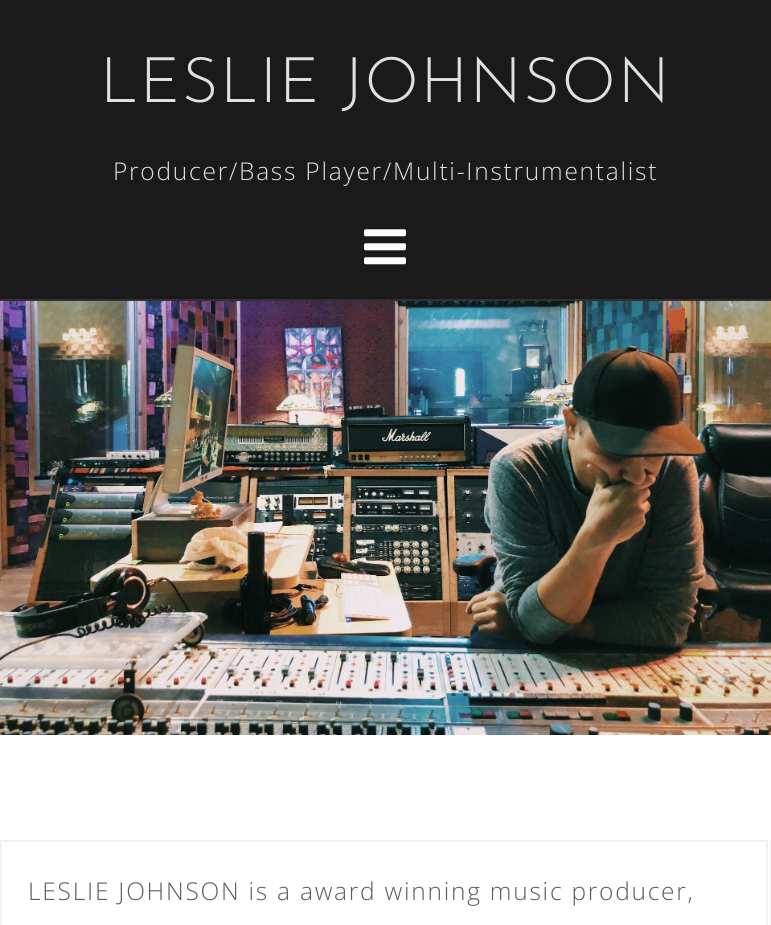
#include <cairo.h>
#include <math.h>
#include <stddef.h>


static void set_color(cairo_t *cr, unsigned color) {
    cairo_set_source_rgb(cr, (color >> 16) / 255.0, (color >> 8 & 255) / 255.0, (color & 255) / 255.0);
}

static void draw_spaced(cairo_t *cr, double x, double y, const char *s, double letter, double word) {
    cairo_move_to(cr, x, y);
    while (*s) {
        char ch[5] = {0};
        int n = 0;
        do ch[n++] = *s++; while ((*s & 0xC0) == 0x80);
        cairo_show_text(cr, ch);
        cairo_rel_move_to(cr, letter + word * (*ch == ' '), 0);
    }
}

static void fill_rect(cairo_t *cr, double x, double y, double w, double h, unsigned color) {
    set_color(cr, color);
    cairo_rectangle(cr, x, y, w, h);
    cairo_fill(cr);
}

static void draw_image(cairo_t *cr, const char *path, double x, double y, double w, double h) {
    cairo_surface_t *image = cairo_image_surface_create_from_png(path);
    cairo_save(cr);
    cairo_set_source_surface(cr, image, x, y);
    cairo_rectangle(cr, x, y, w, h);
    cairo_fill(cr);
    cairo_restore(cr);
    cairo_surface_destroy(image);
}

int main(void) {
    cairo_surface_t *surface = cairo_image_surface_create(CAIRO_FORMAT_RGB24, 771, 925);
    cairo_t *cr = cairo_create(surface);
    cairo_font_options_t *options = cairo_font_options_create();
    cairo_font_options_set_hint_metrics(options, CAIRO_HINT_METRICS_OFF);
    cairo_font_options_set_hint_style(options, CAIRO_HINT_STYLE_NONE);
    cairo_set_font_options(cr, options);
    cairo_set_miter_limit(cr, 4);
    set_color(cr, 0xFFFFFF);
    cairo_paint(cr);
    fill_rect(cr, 0, 0, 771, 299, 0x1A1A1A);
    fill_rect(cr, 0, 299, 771, 2, 0x313131);
    cairo_select_font_face(cr, "Josefin Sans Thin", CAIRO_FONT_SLANT_NORMAL, CAIRO_FONT_WEIGHT_NORMAL);
    cairo_set_font_size(cr, 63);
    set_color(cr, 0xDCE2E1);
    draw_spaced(cr, 100, 102, "LESLIE JOHNSON", 1.75, 0);
    cairo_select_font_face(cr, "Open Sans Light", CAIRO_FONT_SLANT_NORMAL, CAIRO_FONT_WEIGHT_NORMAL);
    cairo_set_font_size(cr, 24.5);
    draw_spaced(cr, 113, 180, "Producer/Bass Player/Multi-Instrumentalist", 1.75, 0);
    draw_image(cr, "assets/img1.png", 364, 229, 42, 36);
    draw_image(cr, "assets/img2.png", 0, 301, 771, 434);
    fill_rect(cr, 770, 840, 1, 85, 0xF2F2F3);
    cairo_rectangle(cr, 1, 841, 766, 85);
    cairo_stroke(cr);
    set_color(cr, 0x5B5E5E);
    draw_spaced(cr, 28, 900, "LESLIE JOHNSON is a award winning music producer,", 1.75, 0);
    cairo_surface_write_to_png(surface, "output.png");
    cairo_font_options_destroy(options);
    cairo_destroy(cr);
    cairo_surface_destroy(surface);
    return 0;
}
